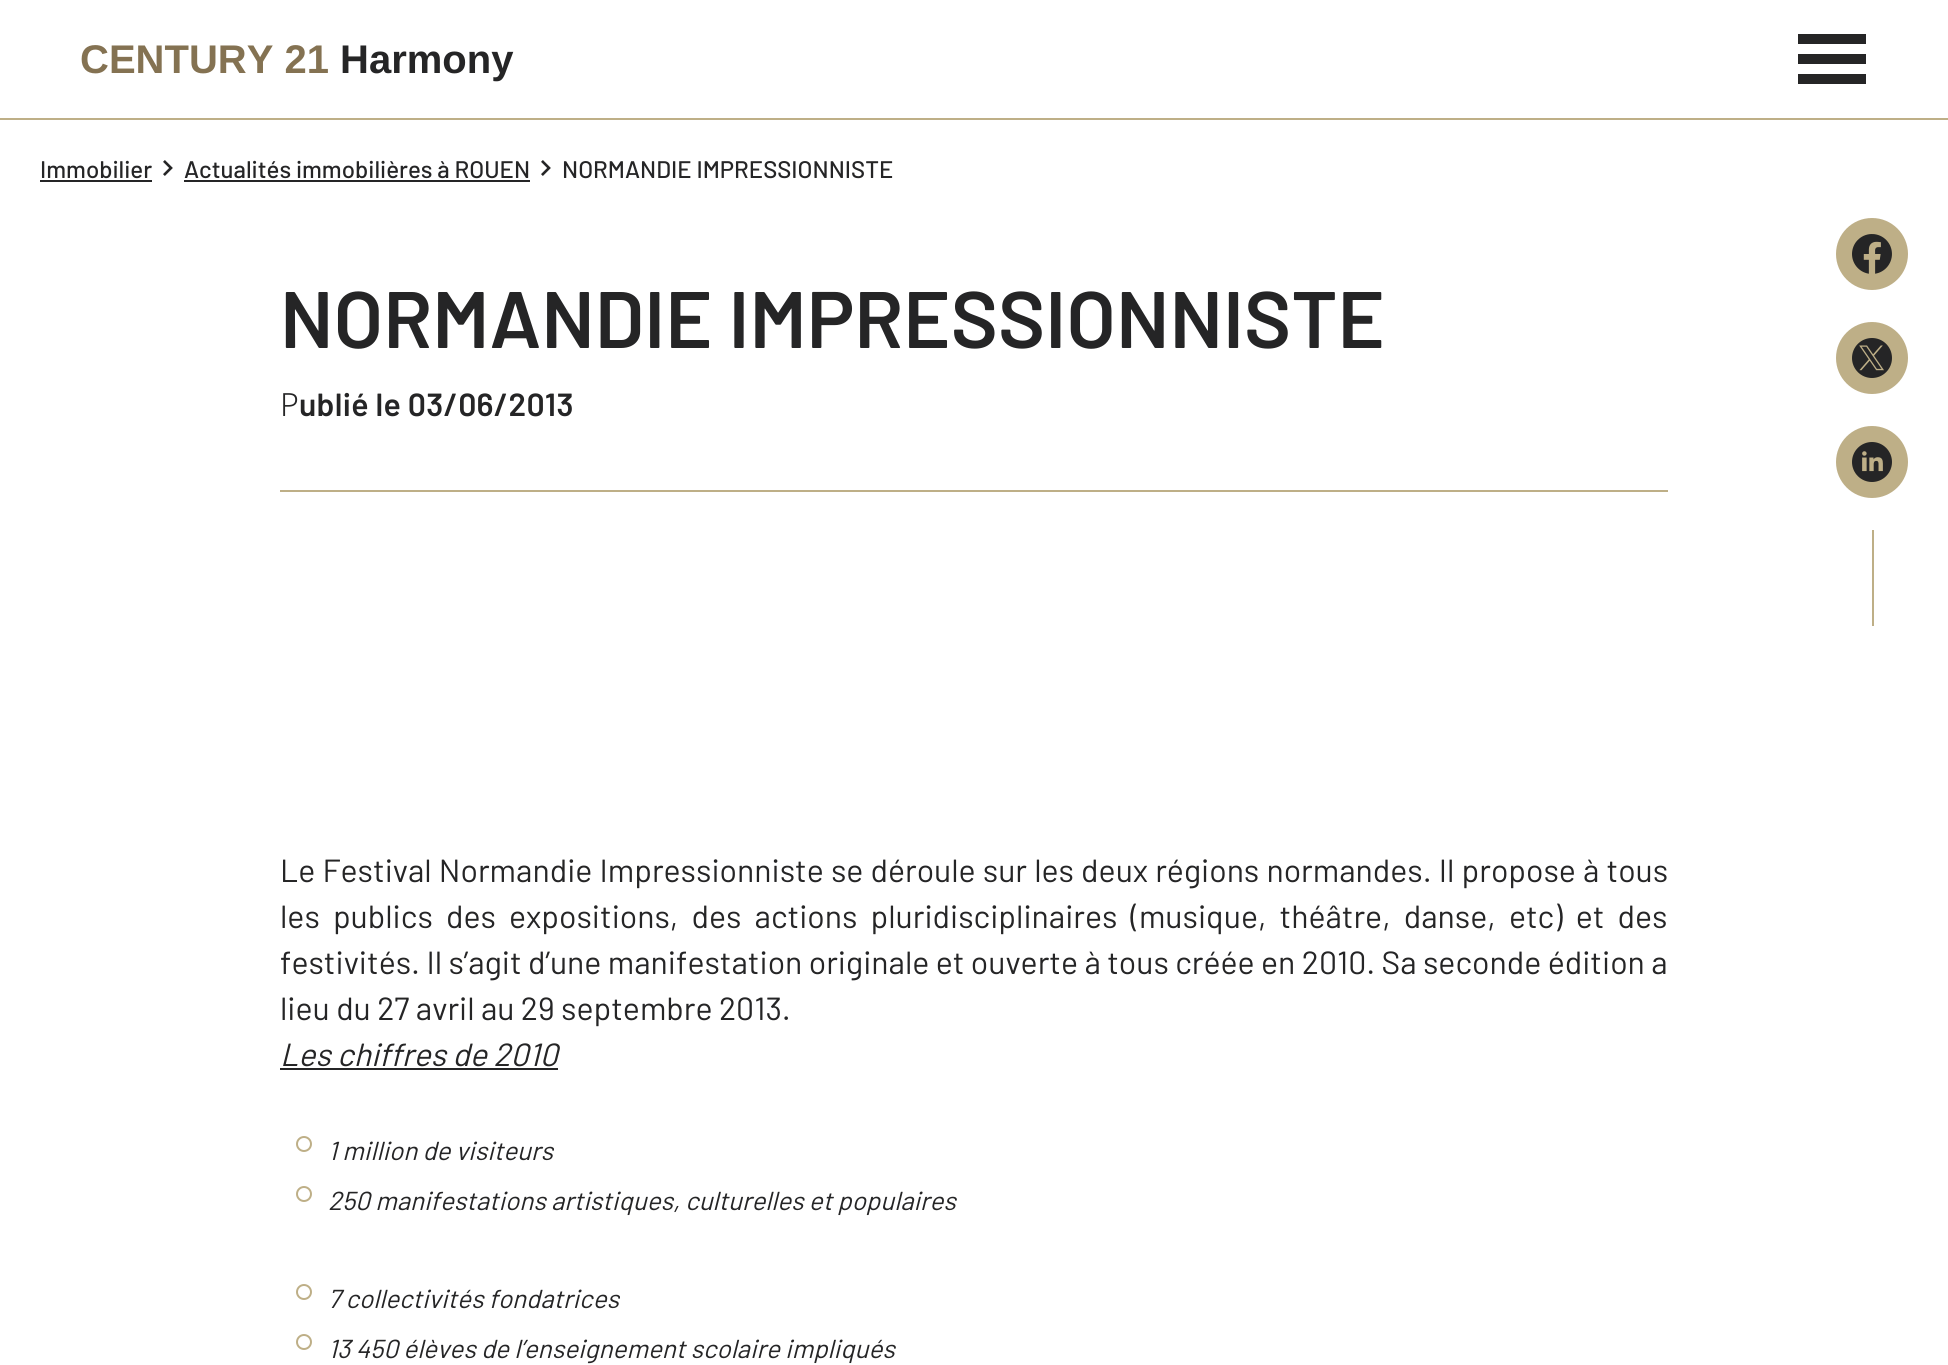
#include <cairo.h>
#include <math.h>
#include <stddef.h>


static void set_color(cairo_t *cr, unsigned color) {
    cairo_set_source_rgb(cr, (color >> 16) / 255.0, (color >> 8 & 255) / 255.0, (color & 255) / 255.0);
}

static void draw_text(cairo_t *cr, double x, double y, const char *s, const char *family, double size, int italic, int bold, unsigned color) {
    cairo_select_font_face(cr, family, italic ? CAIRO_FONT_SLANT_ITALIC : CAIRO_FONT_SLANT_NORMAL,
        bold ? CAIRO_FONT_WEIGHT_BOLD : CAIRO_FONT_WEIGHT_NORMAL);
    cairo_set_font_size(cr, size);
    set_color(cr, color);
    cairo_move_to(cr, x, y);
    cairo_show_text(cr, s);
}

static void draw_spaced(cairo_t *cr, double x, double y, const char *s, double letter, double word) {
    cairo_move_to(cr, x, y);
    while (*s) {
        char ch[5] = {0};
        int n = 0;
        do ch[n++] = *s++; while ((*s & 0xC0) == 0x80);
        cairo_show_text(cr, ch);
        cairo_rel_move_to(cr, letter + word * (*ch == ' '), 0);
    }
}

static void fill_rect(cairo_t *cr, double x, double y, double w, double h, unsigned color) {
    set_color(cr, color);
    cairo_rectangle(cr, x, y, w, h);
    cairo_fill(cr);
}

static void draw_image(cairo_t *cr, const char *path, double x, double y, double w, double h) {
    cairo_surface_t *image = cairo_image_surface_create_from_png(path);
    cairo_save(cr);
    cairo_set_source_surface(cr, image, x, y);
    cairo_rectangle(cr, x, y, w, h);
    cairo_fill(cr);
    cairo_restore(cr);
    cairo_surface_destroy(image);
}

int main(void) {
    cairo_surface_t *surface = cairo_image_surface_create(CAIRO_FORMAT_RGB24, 1948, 1365);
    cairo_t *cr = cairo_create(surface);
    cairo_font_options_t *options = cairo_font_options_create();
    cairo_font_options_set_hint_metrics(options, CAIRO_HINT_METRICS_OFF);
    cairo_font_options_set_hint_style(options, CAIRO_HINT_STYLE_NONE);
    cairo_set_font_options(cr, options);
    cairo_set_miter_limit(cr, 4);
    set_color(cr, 0xFFFFFF);
    cairo_paint(cr);
    fill_rect(cr, 0, 118, 1948, 2, 0xBEAF87);
    draw_text(cr, 80, 73, "CENTURY 21", "Liberation Sans", 40, 0, 1, 0x847252);
    draw_text(cr, 340, 73, "Harmony", "Liberation Sans", 40, 0, 1, 0x252526);
    fill_rect(cr, 1798, 74, 68, 10, 0x252526);
    fill_rect(cr, 1798, 34, 68, 10, 0x252526);
    fill_rect(cr, 1798, 54, 68, 10, 0x252526);
    draw_text(cr, 40, 178, "Immobilier", "Barlow Medium", 24, 0, 0, 0x252526);
    fill_rect(cr, 40, 180, 112, 2, 0x252526);
    draw_image(cr, "assets/img1.png", 163, 160, 10, 16);
    draw_text(cr, 184, 178, "Actualités immobilières à ROUEN", "Barlow Medium", 24, 0, 0, 0x252526);
    fill_rect(cr, 184, 180, 346, 2, 0x252526);
    draw_image(cr, "assets/img1.png", 541, 160, 10, 16);
    draw_text(cr, 562, 178, "NORMANDIE IMPRESSIONNISTE", "Barlow Medium", 24, 0, 0, 0x252526);
    draw_text(cr, 280, 348, "NORMANDIE IMPRESSIONNISTE", "Barlow SemiBold", 80, 0, 0, 0x252526);
    cairo_select_font_face(cr, "Noto Sans Light", CAIRO_FONT_SLANT_NORMAL, CAIRO_FONT_WEIGHT_NORMAL);
    cairo_set_font_size(cr, 32);
    draw_spaced(cr, 280, 416, "P", 0.3, 0);
    cairo_select_font_face(cr, "Barlow SemiBold", CAIRO_FONT_SLANT_NORMAL, CAIRO_FONT_WEIGHT_NORMAL);
    draw_spaced(cr, 299, 416, "ublié le 03/06/2013", 0.3, 0);
    fill_rect(cr, 280, 490, 1388, 2, 0xBEAF87);
    cairo_select_font_face(cr, "Barlow", CAIRO_FONT_SLANT_NORMAL, CAIRO_FONT_WEIGHT_NORMAL);
    set_color(cr, 0x252526);
    draw_spaced(cr, 280, 882, "Le Festival Normandie Impressionniste se déroule sur les deux régions normandes. Il propose à tous", 0, 0.75);
    draw_spaced(cr, 280, 928, "les publics des expositions, des actions pluridisciplinaires (musique, théâtre, danse, etc) et des", 0, 6.75);
    draw_text(cr, 280, 974, "festivités. Il s’agit d’une manifestation originale et ouverte à tous créée en 2010. Sa seconde édition a", "Barlow", 32, 0, 0, 0x252526);
    draw_text(cr, 280, 1020, "lieu du 27 avril au 29 septembre 2013.", "Barlow", 32, 0, 0, 0x252526);
    draw_text(cr, 280, 1066, "Les chiffres de 2010", "Barlow", 32, 1, 0, 0x252526);
    fill_rect(cr, 280, 1068, 278, 2, 0x252526);
    cairo_new_path(cr);
    cairo_arc(cr, 304, 1144, 7, 0, 2 * M_PI);
    set_color(cr, 0xBEAF87);
    cairo_stroke(cr);
    draw_text(cr, 328, 1160, "1 million de visiteurs", "Barlow", 26, 1, 0, 0x252526);
    cairo_new_path(cr);
    cairo_arc(cr, 304, 1194, 7, 0, 2 * M_PI);
    set_color(cr, 0xBEAF87);
    cairo_stroke(cr);
    draw_text(cr, 328, 1210, "250 manifestations artistiques, culturelles et populaires", "Barlow", 26, 1, 0, 0x252526);
    cairo_new_path(cr);
    cairo_arc(cr, 304, 1292, 7, 0, 2 * M_PI);
    set_color(cr, 0xBEAF87);
    cairo_stroke(cr);
    draw_text(cr, 328, 1308, "7 collectivités fondatrices", "Barlow", 26, 1, 0, 0x252526);
    cairo_new_path(cr);
    cairo_arc(cr, 304, 1342, 7, 0, 2 * M_PI);
    set_color(cr, 0xBEAF87);
    cairo_stroke(cr);
    draw_text(cr, 328, 1358, "13 450 élèves de l’enseignement scolaire impliqués", "Barlow", 26, 1, 0, 0x252526);
    set_color(cr, 0xBEAF87);
    cairo_new_path(cr);
    cairo_arc(cr, 1872, 254, 36, 0, 2 * M_PI);
    cairo_fill(cr);
    draw_image(cr, "assets/img2.png", 1852, 234, 40, 40);
    cairo_arc(cr, 1872, 358, 36, 0, 2 * M_PI);
    cairo_fill(cr);
    draw_image(cr, "assets/img3.png", 1852, 338, 40, 40);
    cairo_arc(cr, 1872, 462, 36, 0, 2 * M_PI);
    cairo_fill(cr);
    draw_image(cr, "assets/img4.png", 1852, 442, 40, 40);
    fill_rect(cr, 1872, 530, 2, 96, 0xBEAF87);
    cairo_surface_write_to_png(surface, "output.png");
    cairo_font_options_destroy(options);
    cairo_destroy(cr);
    cairo_surface_destroy(surface);
    return 0;
}
